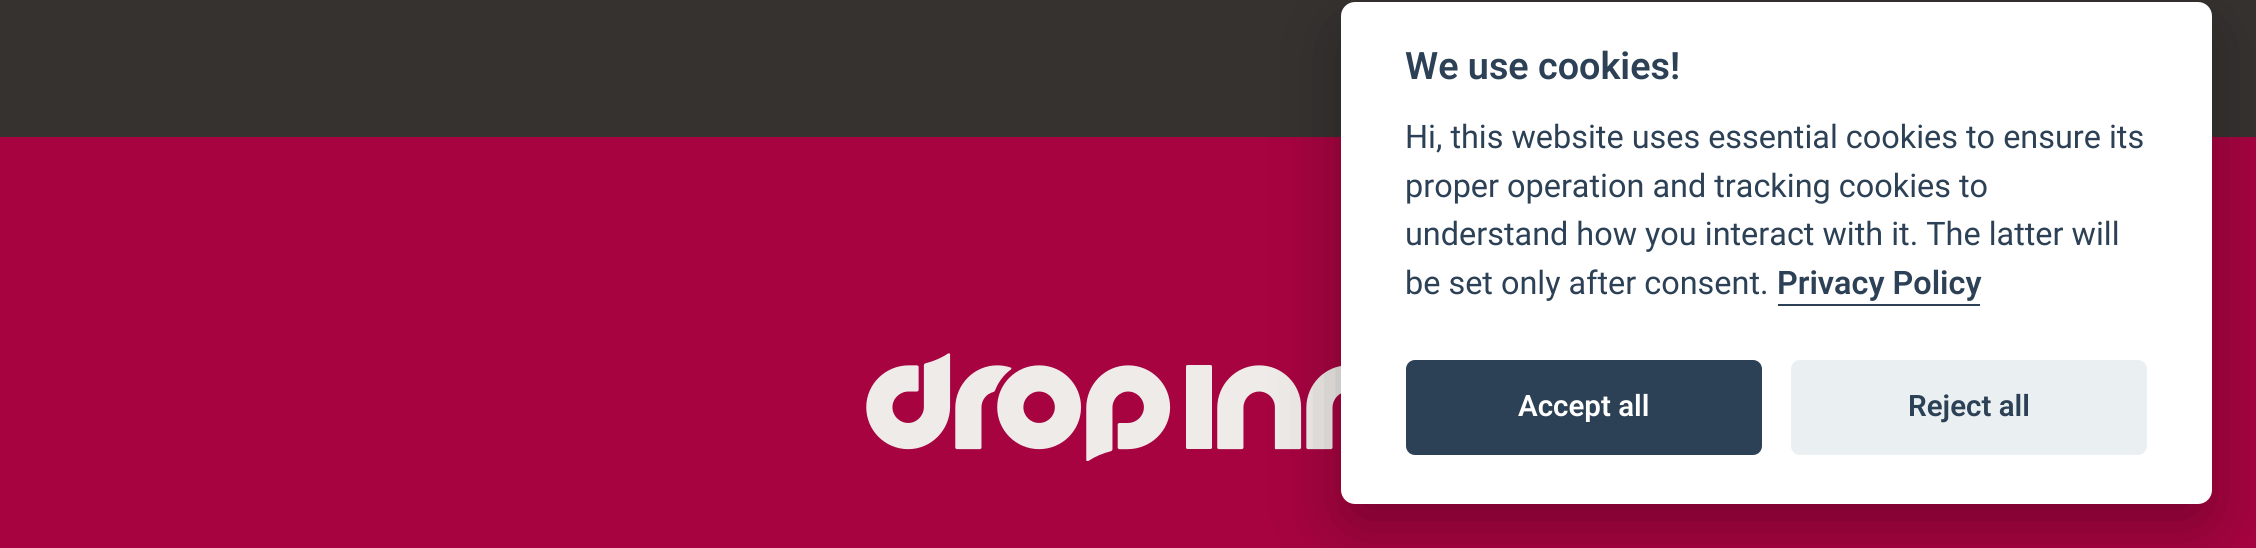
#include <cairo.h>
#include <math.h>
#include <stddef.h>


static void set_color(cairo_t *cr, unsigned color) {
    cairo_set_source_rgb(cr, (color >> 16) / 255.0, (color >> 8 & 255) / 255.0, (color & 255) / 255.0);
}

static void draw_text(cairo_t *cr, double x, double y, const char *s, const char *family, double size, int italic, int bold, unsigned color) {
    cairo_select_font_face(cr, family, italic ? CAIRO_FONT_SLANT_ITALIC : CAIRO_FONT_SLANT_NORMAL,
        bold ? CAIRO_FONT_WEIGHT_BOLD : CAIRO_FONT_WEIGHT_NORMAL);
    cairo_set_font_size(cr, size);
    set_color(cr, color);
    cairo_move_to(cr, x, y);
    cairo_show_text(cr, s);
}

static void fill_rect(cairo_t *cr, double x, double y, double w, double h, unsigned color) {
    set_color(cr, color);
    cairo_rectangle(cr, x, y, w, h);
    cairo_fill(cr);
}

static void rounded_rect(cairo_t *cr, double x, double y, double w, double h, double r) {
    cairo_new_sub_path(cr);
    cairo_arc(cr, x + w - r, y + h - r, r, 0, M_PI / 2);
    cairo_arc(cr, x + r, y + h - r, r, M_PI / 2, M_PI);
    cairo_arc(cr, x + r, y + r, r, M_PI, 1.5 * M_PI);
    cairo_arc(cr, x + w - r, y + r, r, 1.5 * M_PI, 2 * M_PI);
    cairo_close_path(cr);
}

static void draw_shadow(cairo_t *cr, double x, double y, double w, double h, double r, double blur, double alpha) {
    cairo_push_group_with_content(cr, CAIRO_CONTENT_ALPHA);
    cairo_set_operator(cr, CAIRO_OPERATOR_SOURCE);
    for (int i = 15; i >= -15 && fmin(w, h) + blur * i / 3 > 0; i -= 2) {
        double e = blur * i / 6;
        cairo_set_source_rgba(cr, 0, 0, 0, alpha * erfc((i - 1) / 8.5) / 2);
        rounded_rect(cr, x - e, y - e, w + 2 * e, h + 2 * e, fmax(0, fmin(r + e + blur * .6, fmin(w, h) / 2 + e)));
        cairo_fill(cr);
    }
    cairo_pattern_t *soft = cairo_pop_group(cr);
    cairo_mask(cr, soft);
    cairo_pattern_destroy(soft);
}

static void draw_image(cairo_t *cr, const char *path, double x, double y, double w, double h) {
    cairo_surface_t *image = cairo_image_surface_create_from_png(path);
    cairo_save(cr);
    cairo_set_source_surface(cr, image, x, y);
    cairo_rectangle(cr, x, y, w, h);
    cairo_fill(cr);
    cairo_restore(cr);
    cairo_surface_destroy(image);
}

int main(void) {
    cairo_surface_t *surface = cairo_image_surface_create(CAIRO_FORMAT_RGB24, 2256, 548);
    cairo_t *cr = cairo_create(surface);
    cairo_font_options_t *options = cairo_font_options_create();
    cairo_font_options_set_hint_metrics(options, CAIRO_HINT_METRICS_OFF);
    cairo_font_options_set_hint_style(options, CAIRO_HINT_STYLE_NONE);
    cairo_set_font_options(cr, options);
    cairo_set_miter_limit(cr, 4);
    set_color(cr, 0xA60340);
    cairo_paint(cr);
    fill_rect(cr, 0, 0, 2256, 137, 0x353230);
    draw_image(cr, "assets/img1.png", 866, 353, 475, 108);
    set_color(cr, 0x020203);
    draw_shadow(cr, 1341, 25, 871, 502, 14, 34, 0.28);
    set_color(cr, 0xFFFFFF);
    rounded_rect(cr, 1341, 2, 871, 502, 14);
    cairo_fill(cr);
    draw_text(cr, 1405, 79, "We use cookies!", "Roboto SemiBold", 37.75, 0, 0, 0x2D4156);
    draw_text(cr, 1405, 148, "Hi, this website uses essential cookies to ensure its", "Roboto", 32.4, 0, 0, 0x2D4156);
    draw_text(cr, 1405, 197, "proper operation and tracking cookies to", "Roboto", 32.4, 0, 0, 0x2D4156);
    draw_text(cr, 1405, 245, "understand how you interact with it. The latter will", "Roboto", 32.4, 0, 0, 0x2D4156);
    draw_text(cr, 1405, 294, "be set only after consent.", "Roboto", 32.4, 0, 0, 0x2D4156);
    draw_text(cr, 1777, 294, "Privacy Policy", "Roboto SemiBold", 32.4, 0, 0, 0x2D4156);
    fill_rect(cr, 1778, 304, 202, 2, 0x2D4156);
    rounded_rect(cr, 1406, 360, 356, 95, 9);
    cairo_fill(cr);
    draw_text(cr, 1518, 416, "Accept all", "Roboto SemiBold", 29.5, 0, 0, 0xFFFFFF);
    set_color(cr, 0xEAEFF2);
    rounded_rect(cr, 1791, 360, 356, 95, 9);
    cairo_fill(cr);
    draw_text(cr, 1908, 416, "Reject all", "Roboto SemiBold", 29.5, 0, 0, 0x2D4156);
    cairo_surface_write_to_png(surface, "output.png");
    cairo_font_options_destroy(options);
    cairo_destroy(cr);
    cairo_surface_destroy(surface);
    return 0;
}
